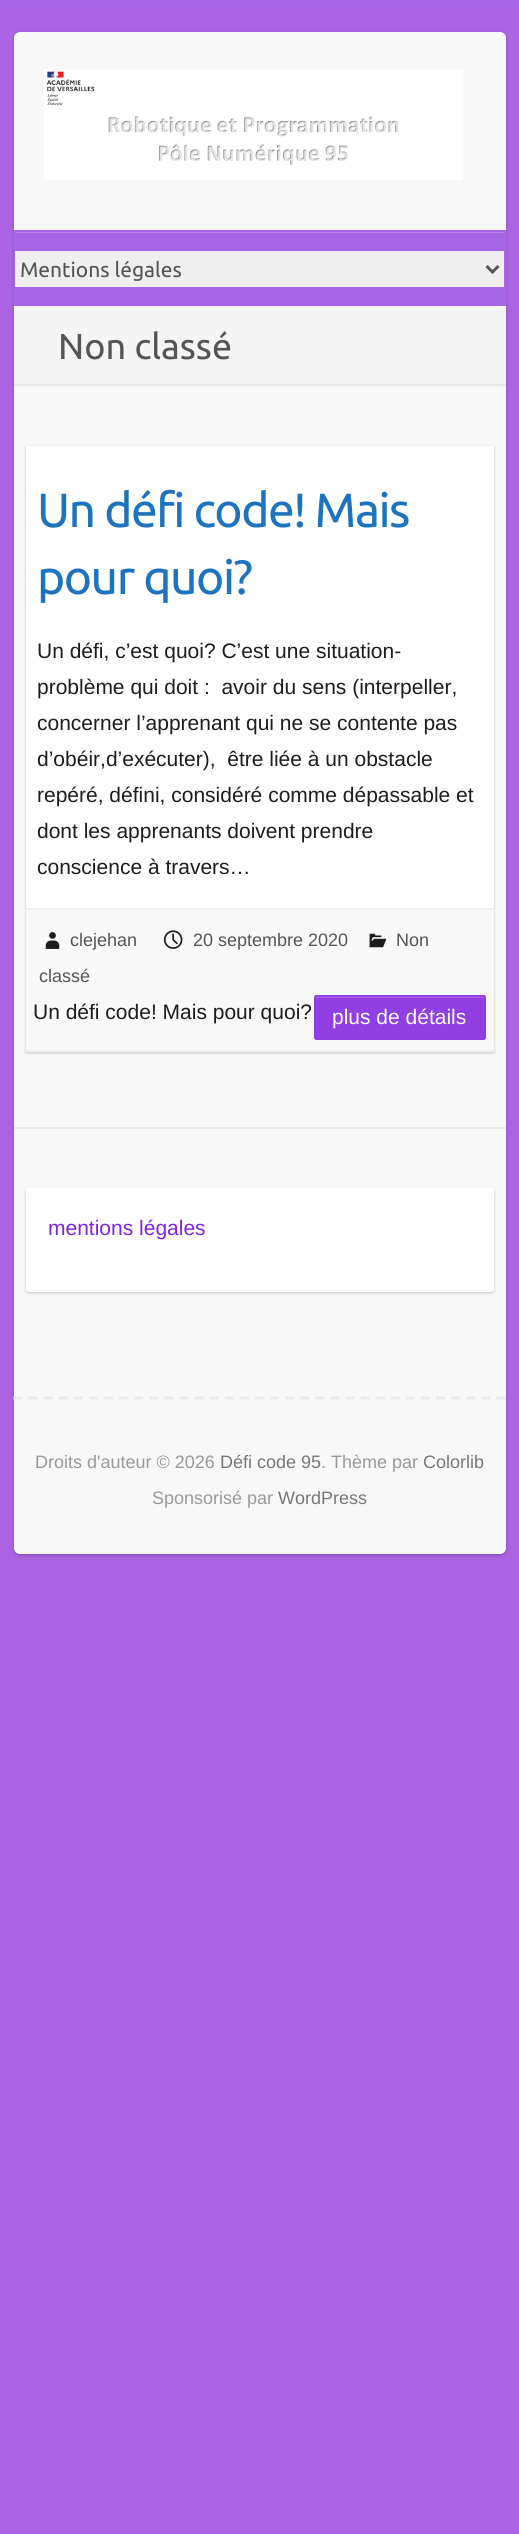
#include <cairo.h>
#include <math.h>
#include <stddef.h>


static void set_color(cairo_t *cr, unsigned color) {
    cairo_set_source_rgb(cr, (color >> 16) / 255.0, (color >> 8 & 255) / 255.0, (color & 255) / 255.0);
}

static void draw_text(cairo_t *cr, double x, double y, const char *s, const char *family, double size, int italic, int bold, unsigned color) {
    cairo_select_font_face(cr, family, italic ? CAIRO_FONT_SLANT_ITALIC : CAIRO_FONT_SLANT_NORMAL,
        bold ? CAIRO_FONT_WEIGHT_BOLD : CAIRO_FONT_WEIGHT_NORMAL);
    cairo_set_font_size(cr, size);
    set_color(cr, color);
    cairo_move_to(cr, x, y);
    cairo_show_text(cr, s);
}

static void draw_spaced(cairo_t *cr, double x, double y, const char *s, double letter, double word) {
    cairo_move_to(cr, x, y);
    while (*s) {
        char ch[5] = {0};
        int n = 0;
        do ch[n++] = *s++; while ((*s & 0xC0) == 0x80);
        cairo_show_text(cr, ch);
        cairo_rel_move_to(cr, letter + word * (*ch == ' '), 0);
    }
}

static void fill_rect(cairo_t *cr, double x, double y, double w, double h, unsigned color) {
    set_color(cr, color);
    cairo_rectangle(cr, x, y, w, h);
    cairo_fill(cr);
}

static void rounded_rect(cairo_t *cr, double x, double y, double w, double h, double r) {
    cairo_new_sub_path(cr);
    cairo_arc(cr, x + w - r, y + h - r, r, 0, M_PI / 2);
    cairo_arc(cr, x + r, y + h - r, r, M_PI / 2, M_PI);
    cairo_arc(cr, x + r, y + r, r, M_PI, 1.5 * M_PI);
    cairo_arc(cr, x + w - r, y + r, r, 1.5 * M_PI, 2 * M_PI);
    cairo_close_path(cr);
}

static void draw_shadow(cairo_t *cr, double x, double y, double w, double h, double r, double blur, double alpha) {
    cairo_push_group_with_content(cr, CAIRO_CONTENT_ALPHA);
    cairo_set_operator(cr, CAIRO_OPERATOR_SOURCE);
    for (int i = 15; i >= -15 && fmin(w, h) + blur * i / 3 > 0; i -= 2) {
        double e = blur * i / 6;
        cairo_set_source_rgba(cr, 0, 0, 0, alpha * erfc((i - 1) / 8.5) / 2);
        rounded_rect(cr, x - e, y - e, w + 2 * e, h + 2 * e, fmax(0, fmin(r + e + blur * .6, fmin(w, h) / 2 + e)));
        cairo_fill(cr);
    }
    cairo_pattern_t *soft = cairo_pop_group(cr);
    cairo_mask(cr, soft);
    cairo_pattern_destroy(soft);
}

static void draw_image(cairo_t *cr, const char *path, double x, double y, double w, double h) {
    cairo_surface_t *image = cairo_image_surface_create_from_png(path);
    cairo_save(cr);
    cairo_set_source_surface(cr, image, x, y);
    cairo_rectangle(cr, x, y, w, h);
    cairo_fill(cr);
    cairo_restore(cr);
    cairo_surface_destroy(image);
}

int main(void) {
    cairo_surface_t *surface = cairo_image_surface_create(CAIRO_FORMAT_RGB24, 519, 2534);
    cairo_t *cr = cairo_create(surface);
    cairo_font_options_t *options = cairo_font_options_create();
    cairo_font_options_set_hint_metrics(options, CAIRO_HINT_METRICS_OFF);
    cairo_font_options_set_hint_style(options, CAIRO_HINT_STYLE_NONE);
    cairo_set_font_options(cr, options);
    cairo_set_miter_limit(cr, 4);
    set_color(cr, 0xAB63E2);
    cairo_paint(cr);
    fill_rect(cr, 0, 0, 519, 9, 0xA466E2);
    set_color(cr, 0x000000);
    draw_shadow(cr, 14, 33, 492, 1523, 6, 1.5, 0.2);
    set_color(cr, 0xF8F8F8);
    rounded_rect(cr, 14, 32, 492, 1522, 6);
    cairo_fill(cr);
    draw_image(cr, "assets/img1.png", 44, 69, 419, 111);
    fill_rect(cr, 16, 233, 488, 71, 0xA466E2);
    fill_rect(cr, 15, 232, 489, 1, 0xB685E8);
    cairo_rectangle(cr, 15, 231, 490, 74);
    set_color(cr, 0xA466E2);
    cairo_stroke(cr);
    fill_rect(cr, 15, 251, 489, 36, 0xEFEFEF);
    cairo_new_path(cr);
    cairo_move_to(cr, 486.5, 266);
    cairo_line_to(cr, 492.5, 272);
    cairo_line_to(cr, 498.5, 266);
    set_color(cr, 0x555555);
    cairo_set_line_width(cr, 3);
    cairo_stroke(cr);
    draw_text(cr, 20, 277, "Mentions légales", "Ubuntu", 21, 0, 0, 0x555555);
    fill_rect(cr, 14, 306, 492, 78, 0xF5F5F5);
    fill_rect(cr, 14, 384, 492, 2, 0xEAEAEA);
    draw_text(cr, 58, 359, "Non classé", "Ubuntu", 36, 0, 0, 0x555555);
    set_color(cr, 0x000000);
    draw_shadow(cr, 26, 447, 468, 606, 0, 1.5, 0.2);
    fill_rect(cr, 26, 446, 468, 462, 0xFFFFFF);
    cairo_set_font_size(cr, 48);
    set_color(cr, 0x1E73BE);
    draw_spaced(cr, 37, 527, "Un défi code! Mais", -1.5, 0);
    draw_spaced(cr, 37, 594, "pour quoi?", -1.5, 0);
    draw_text(cr, 37, 658, "Un défi, c’est quoi? C’est une situation-", "Liberation Sans", 21, 0, 0, 0x1D1D1D);
    draw_text(cr, 37, 694, "problème qui doit :  avoir du sens (interpeller,", "Liberation Sans", 21, 0, 0, 0x1D1D1D);
    draw_text(cr, 37, 730, "concerner l’apprenant qui ne se contente pas", "Liberation Sans", 21, 0, 0, 0x1D1D1D);
    draw_text(cr, 37, 766, "d’obéir,d’exécuter),  être liée à un obstacle", "Liberation Sans", 21, 0, 0, 0x1D1D1D);
    draw_text(cr, 37, 802, "repéré, défini, considéré comme dépassable et", "Liberation Sans", 21, 0, 0, 0x1D1D1D);
    draw_text(cr, 37, 838, "dont les apprenants doivent prendre", "Liberation Sans", 21, 0, 0, 0x1D1D1D);
    draw_text(cr, 37, 874, "conscience à travers…", "Liberation Sans", 21, 0, 0, 0x1D1D1D);
    fill_rect(cr, 26, 910, 468, 140, 0xF9F9F9);
    fill_rect(cr, 26, 908, 468, 2, 0xF0F0F0);
    fill_rect(cr, 26, 1050, 468, 2, 0xF0F0F0);
    draw_image(cr, "assets/img2.png", 45, 932, 15, 17);
    draw_text(cr, 70, 946, "clejehan", "Liberation Sans", 18, 0, 0, 0x555555);
    draw_image(cr, "assets/img3.png", 163, 930, 20, 19);
    draw_text(cr, 193, 946, "20 septembre 2020", "Liberation Sans", 18, 0, 0, 0x555555);
    draw_image(cr, "assets/img4.png", 369, 933, 18, 15);
    draw_text(cr, 396, 946, "Non", "Liberation Sans", 18, 0, 0, 0x555555);
    draw_text(cr, 39, 982, "classé", "Liberation Sans", 18, 0, 0, 0x555555);
    draw_text(cr, 33, 1019, "Un défi code! Mais pour quoi?", "Liberation Sans", 21, 0, 0, 0x1D1D1D);
    set_color(cr, 0x913FE2);
    rounded_rect(cr, 314, 995, 172, 45, 3);
    cairo_fill(cr);
    set_color(cr, 0xA765E8);
    cairo_new_path(cr);
    cairo_move_to(cr, 316, 998);
    cairo_line_to(cr, 483, 998);
    cairo_curve_to(cr, 484, 998, 484, 998, 484, 999);
    cairo_line_to(cr, 484, 1038);
    cairo_curve_to(cr, 485, 1038, 485, 1037, 485, 1036);
    cairo_line_to(cr, 485, 998);
    cairo_curve_to(cr, 485, 997, 484, 996, 484, 996);
    cairo_line_to(cr, 316, 996);
    cairo_curve_to(cr, 316, 996, 315, 997, 315, 998);
    cairo_line_to(cr, 315, 999);
    cairo_close_path(cr);
    cairo_fill(cr);
    rounded_rect(cr, 315, 996, 170, 43, 2);
    set_color(cr, 0x913FE2);
    cairo_set_line_width(cr, 2);
    cairo_stroke(cr);
    draw_text(cr, 332, 1024, "plus de détails", "Liberation Sans", 21, 0, 0, 0xFFFFFF);
    fill_rect(cr, 14, 1127, 492, 2, 0xEAEAEA);
    set_color(cr, 0x000000);
    draw_shadow(cr, 26, 1190, 468, 103, 3, 1.5, 0.2);
    set_color(cr, 0xFFFFFF);
    rounded_rect(cr, 26, 1188, 468, 104, 3);
    cairo_fill(cr);
    draw_text(cr, 48, 1235, "mentions légales", "Liberation Sans", 21, 0, 0, 0x8224E3);
    cairo_new_path(cr);
    cairo_move_to(cr, 13.5, 1398);
    cairo_line_to(cr, 505.5, 1398);
    set_color(cr, 0xEAEAEA);
    cairo_set_line_width(cr, 3);
    cairo_set_dash(cr, (double[]){9, 6.09}, 2, 0);
    cairo_stroke(cr);
    draw_text(cr, 35, 1468, "Droits d'auteur © 2026", "Liberation Sans", 18, 0, 0, 0x999999);
    draw_text(cr, 220, 1468, "Défi code 95", "Liberation Sans", 18, 0, 0, 0x777777);
    draw_text(cr, 321, 1468, ". Thème par", "Liberation Sans", 18, 0, 0, 0x999999);
    draw_text(cr, 423, 1468, "Colorlib", "Liberation Sans", 18, 0, 0, 0x777777);
    draw_text(cr, 152, 1504, "Sponsorisé par", "Liberation Sans", 18, 0, 0, 0x999999);
    draw_text(cr, 278, 1504, "WordPress", "Liberation Sans", 18, 0, 0, 0x777777);
    cairo_surface_write_to_png(surface, "output.png");
    cairo_font_options_destroy(options);
    cairo_destroy(cr);
    cairo_surface_destroy(surface);
    return 0;
}
